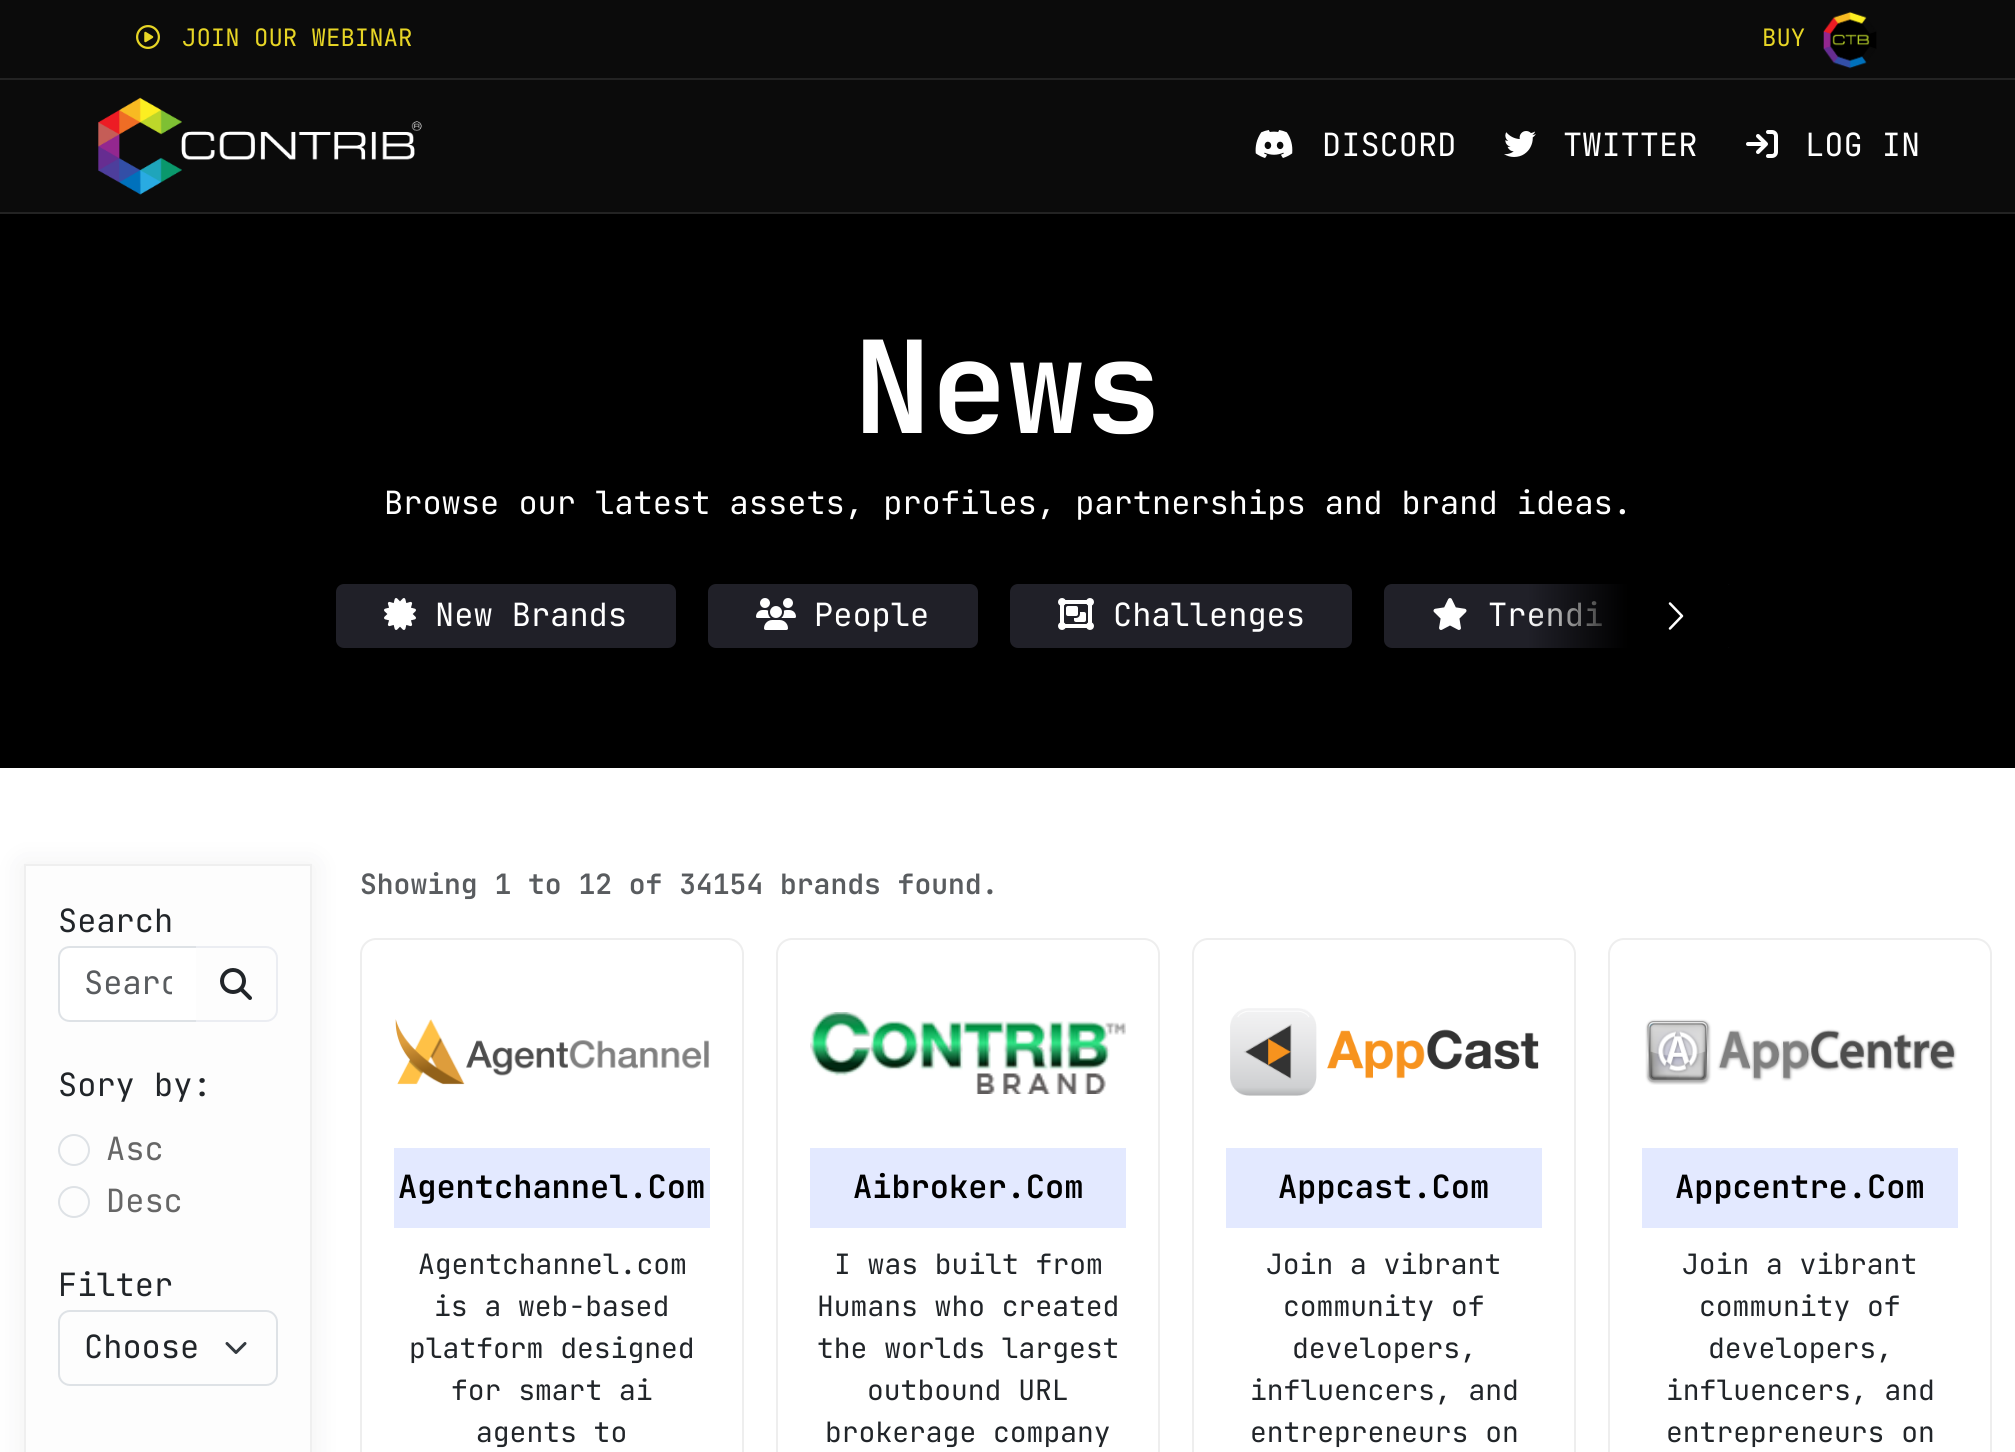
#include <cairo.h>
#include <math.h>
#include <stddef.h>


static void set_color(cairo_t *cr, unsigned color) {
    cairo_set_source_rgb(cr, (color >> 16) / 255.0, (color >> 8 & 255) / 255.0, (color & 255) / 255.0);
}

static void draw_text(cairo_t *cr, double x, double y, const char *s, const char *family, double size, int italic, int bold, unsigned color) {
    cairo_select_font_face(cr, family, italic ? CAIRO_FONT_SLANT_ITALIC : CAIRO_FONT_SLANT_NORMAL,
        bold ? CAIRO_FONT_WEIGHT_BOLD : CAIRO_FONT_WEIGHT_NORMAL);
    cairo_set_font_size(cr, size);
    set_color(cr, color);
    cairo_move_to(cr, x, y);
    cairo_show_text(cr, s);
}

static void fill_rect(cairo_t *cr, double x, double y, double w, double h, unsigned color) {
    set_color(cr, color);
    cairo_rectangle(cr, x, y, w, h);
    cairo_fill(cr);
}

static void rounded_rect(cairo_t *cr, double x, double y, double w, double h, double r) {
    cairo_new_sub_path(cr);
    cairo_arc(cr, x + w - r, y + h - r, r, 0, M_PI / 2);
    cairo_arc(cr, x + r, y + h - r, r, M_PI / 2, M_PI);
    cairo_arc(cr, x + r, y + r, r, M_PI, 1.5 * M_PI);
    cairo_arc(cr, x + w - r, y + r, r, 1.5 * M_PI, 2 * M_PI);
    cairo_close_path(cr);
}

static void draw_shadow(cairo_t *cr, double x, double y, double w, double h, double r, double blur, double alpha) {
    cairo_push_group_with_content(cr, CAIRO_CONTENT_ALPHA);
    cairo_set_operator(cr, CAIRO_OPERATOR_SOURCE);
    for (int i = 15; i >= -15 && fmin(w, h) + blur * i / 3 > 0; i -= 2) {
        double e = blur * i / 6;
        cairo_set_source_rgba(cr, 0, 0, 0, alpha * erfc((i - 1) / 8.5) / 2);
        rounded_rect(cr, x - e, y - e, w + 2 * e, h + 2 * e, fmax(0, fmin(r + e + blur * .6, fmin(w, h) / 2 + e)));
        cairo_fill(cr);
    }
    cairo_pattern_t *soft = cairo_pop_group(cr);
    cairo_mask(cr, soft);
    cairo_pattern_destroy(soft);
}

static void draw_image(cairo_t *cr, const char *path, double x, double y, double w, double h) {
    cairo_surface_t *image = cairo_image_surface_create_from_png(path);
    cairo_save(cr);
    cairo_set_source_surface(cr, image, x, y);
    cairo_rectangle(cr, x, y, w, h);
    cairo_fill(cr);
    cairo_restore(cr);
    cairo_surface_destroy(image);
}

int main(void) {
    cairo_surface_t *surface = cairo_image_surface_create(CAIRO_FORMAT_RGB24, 2015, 1452);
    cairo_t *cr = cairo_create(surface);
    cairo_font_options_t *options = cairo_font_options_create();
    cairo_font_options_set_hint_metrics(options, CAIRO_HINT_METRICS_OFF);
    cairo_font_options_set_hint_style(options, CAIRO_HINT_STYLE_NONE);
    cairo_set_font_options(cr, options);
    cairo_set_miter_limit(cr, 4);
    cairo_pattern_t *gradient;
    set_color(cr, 0x0B0B0B);
    cairo_paint(cr);
    fill_rect(cr, 0, 78, 2015, 2, 0x232323);
    draw_image(cr, "assets/img1.png", 136, 25, 24, 24);
    draw_text(cr, 182, 46, "JOIN OUR WEBINAR", "JetBrains Mono", 24, 0, 0, 0xE7D525);
    draw_text(cr, 1762, 46, "BUY", "JetBrains Mono", 24, 0, 0, 0xE7D525);
    draw_image(cr, "assets/img2.png", 1823, 11, 54, 58);
    fill_rect(cr, 0, 212, 2015, 2, 0x232323);
    draw_image(cr, "assets/img3.png", 98, 97, 324, 98);
    draw_image(cr, "assets/img4.png", 1255, 130, 38, 28);
    draw_text(cr, 1322, 156, "DISCORD", "JetBrains Mono", 32, 0, 0, 0xFFFFFF);
    draw_image(cr, "assets/img5.png", 1504, 131, 32, 26);
    draw_text(cr, 1563, 156, "TWITTER", "JetBrains Mono", 32, 0, 0, 0xFFFFFF);
    draw_image(cr, "assets/img6.png", 1746, 130, 32, 28);
    draw_text(cr, 1805, 156, "LOG IN", "JetBrains Mono", 32, 0, 0, 0xFFFFFF);
    fill_rect(cr, 0, 214, 2015, 554, 0x000000);
    draw_text(cr, 854, 433, "News", "JetBrains Mono", 128, 0, 1, 0xFFFFFF);
    draw_text(cr, 384, 514, "Browse our latest assets, profiles, partnerships and brand ideas.", "JetBrains Mono", 32, 0, 0, 0xFFFFFF);
    set_color(cr, 0x202028);
    rounded_rect(cr, 336, 584, 340, 64, 8);
    cairo_fill(cr);
    draw_image(cr, "assets/img7.png", 384, 598, 32, 32);
    draw_text(cr, 435, 626, "New Brands", "JetBrains Mono", 32, 0, 0, 0xFFFFFF);
    set_color(cr, 0x202028);
    rounded_rect(cr, 708, 584, 270, 64, 8);
    cairo_fill(cr);
    draw_image(cr, "assets/img8.png", 756, 598, 40, 32);
    draw_text(cr, 814, 626, "People", "JetBrains Mono", 32, 0, 0, 0xFFFFFF);
    set_color(cr, 0x202028);
    rounded_rect(cr, 1010, 584, 342, 64, 8);
    cairo_fill(cr);
    draw_image(cr, "assets/img9.png", 1058, 598, 36, 32);
    draw_text(cr, 1113, 626, "Challenges", "JetBrains Mono", 32, 0, 0, 0xFFFFFF);
    set_color(cr, 0x202028);
    rounded_rect(cr, 1384, 584, 306, 64, 8);
    cairo_fill(cr);
    draw_image(cr, "assets/img10.png", 1433, 598, 34, 32);
    draw_text(cr, 1488, 626, "Trendi", "JetBrains Mono", 32, 0, 0, 0xFFFFFF);
    set_color(cr, 0x202028);
    cairo_new_path(cr);
    cairo_move_to(cr, 1730, 584);
    cairo_line_to(cr, 1728, 584);
    cairo_line_to(cr, 1728, 648);
    cairo_line_to(cr, 1730, 648);
    cairo_curve_to(cr, 1725.5, 648, 1722, 644.5, 1722, 640);
    cairo_line_to(cr, 1722, 592);
    cairo_curve_to(cr, 1722, 587.5, 1725.5, 584, 1730, 584);
    cairo_close_path(cr);
    cairo_fill(cr);
    gradient = cairo_pattern_create_linear(1728, 616, 1528, 616);
    cairo_pattern_add_color_stop_rgba(gradient, 0.5, 0, 0, 0, 1);
    cairo_pattern_add_color_stop_rgba(gradient, 1, 0, 0, 0, 0);
    cairo_set_source(cr, gradient);
    cairo_pattern_destroy(gradient);
    cairo_new_path(cr);
    cairo_move_to(cr, 1528, 560);
    cairo_line_to(cr, 1720, 560);
    cairo_curve_to(cr, 1724.5, 560, 1728, 563.5, 1728, 568);
    cairo_line_to(cr, 1728, 664);
    cairo_curve_to(cr, 1728, 668.5, 1724.5, 672, 1720, 672);
    cairo_line_to(cr, 1528, 672);
    cairo_close_path(cr);
    cairo_fill(cr);
    cairo_new_path(cr);
    cairo_move_to(cr, 1670, 603.5);
    cairo_line_to(cr, 1682, 616);
    cairo_line_to(cr, 1670, 628.5);
    set_color(cr, 0xFFFFFF);
    cairo_set_line_width(cr, 2.5);
    cairo_set_line_cap(cr, CAIRO_LINE_CAP_ROUND);
    cairo_set_line_join(cr, CAIRO_LINE_JOIN_ROUND);
    cairo_stroke(cr);
    fill_rect(cr, 0, 768, 2015, 684, 0xFFFFFF);
    set_color(cr, 0x45414E);
    draw_shadow(cr, 22, 864, 292, 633, 0, 15, 0.08);
    set_color(cr, 0xFDFDFD);
    cairo_rectangle(cr, 25, 865, 286, 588);
    cairo_fill_preserve(cr);
    set_color(cr, 0xEFEFEF);
    cairo_set_line_width(cr, 2);
    cairo_set_line_cap(cr, CAIRO_LINE_CAP_BUTT);
    cairo_set_line_join(cr, CAIRO_LINE_JOIN_MITER);
    cairo_stroke(cr);
    draw_text(cr, 58, 932, "Search", "JetBrains Mono", 32, 0, 0, 0x212529);
    cairo_new_path(cr);
    cairo_move_to(cr, 195, 947);
    cairo_line_to(cr, 266, 947);
    cairo_curve_to(cr, 272, 947, 277, 952, 277, 958);
    cairo_line_to(cr, 277, 1010);
    cairo_curve_to(cr, 277, 1016, 272, 1021, 266, 1021);
    cairo_line_to(cr, 195, 1021);
    cairo_close_path(cr);
    set_color(cr, 0xEBEDF2);
    cairo_stroke(cr);
    set_color(cr, 0xFFFFFF);
    cairo_new_path(cr);
    cairo_move_to(cr, 70, 948);
    cairo_line_to(cr, 196, 948);
    cairo_line_to(cr, 196, 1020);
    cairo_line_to(cr, 70, 1020);
    cairo_curve_to(cr, 64.5, 1020, 60, 1015.5, 60, 1010);
    cairo_line_to(cr, 60, 958);
    cairo_curve_to(cr, 60, 952.5, 64.5, 948, 70, 948);
    cairo_close_path(cr);
    cairo_fill(cr);
    set_color(cr, 0xDEE2E6);
    cairo_set_fill_rule(cr, CAIRO_FILL_RULE_EVEN_ODD);
    cairo_new_path(cr);
    cairo_move_to(cr, 70, 946);
    cairo_line_to(cr, 196, 946);
    cairo_line_to(cr, 196, 1022);
    cairo_line_to(cr, 70, 1022);
    cairo_curve_to(cr, 63, 1022, 58, 1017, 58, 1010);
    cairo_line_to(cr, 58, 958);
    cairo_curve_to(cr, 58, 951, 63, 946, 70, 946);
    cairo_close_path(cr);
    cairo_move_to(cr, 70, 948);
    cairo_line_to(cr, 196, 948);
    cairo_line_to(cr, 196, 1020);
    cairo_line_to(cr, 70, 1020);
    cairo_curve_to(cr, 64, 1020, 60, 1016, 60, 1010);
    cairo_line_to(cr, 60, 958);
    cairo_curve_to(cr, 60, 952, 64, 948, 70, 948);
    cairo_close_path(cr);
    cairo_fill(cr);
    cairo_save(cr);
    cairo_set_fill_rule(cr, CAIRO_FILL_RULE_WINDING);
    cairo_rectangle(cr, 84, 962, 88, 42);
    cairo_clip(cr);
    draw_text(cr, 84, 994, "Searc", "JetBrains Mono", 32, 0, 0, 0x595C5F);
    cairo_restore(cr);
    draw_image(cr, "assets/img11.png", 220, 968, 32, 32);
    draw_text(cr, 58, 1096, "Sory by:", "JetBrains Mono", 32, 0, 0, 0x212529);
    cairo_new_path(cr);
    cairo_arc(cr, 74, 1150, 15, 0, 2 * M_PI);
    set_color(cr, 0xDEE2E6);
    cairo_stroke(cr);
    draw_text(cr, 106, 1160, "Asc", "JetBrains Mono", 32, 0, 0, 0x666666);
    cairo_new_path(cr);
    cairo_arc(cr, 74, 1202, 15, 0, 2 * M_PI);
    set_color(cr, 0xDEE2E6);
    cairo_stroke(cr);
    draw_text(cr, 106, 1212, "Desc", "JetBrains Mono", 32, 0, 0, 0x666666);
    draw_text(cr, 58, 1296, "Filter", "JetBrains Mono", 32, 0, 0, 0x212529);
    cairo_new_path(cr);
    cairo_move_to(cr, 227, 1343.5);
    cairo_line_to(cr, 236, 1352.5);
    cairo_line_to(cr, 245, 1343.5);
    set_color(cr, 0x343A40);
    cairo_set_line_width(cr, 3);
    cairo_set_line_cap(cr, CAIRO_LINE_CAP_ROUND);
    cairo_set_line_join(cr, CAIRO_LINE_JOIN_ROUND);
    cairo_stroke(cr);
    rounded_rect(cr, 59, 1311, 218, 74, 11);
    set_color(cr, 0xDEE2E6);
    cairo_set_line_width(cr, 2);
    cairo_set_line_cap(cr, CAIRO_LINE_CAP_BUTT);
    cairo_set_line_join(cr, CAIRO_LINE_JOIN_MITER);
    cairo_stroke(cr);
    draw_text(cr, 84, 1358, "Choose", "JetBrains Mono", 32, 0, 0, 0x212529);
    draw_text(cr, 360, 894, "Showing 1 to 12 of 34154 brands found.", "JetBrains Mono SemiBold", 28, 0, 0, 0x595C5F);
    rounded_rect(cr, 361, 939, 382, 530, 15);
    cairo_set_source_rgba(cr, 0, 0, 0, 0.07);
    cairo_stroke(cr);
    draw_image(cr, "assets/img12.png", 395, 1019, 315, 66);
    fill_rect(cr, 394, 1148, 316, 80, 0xE3E9FF);
    draw_text(cr, 398, 1198, "Agentchannel.Com", "JetBrains Mono SemiBold", 32, 0, 0, 0x000000);
    draw_text(cr, 418, 1274, "Agentchannel.com", "JetBrains Mono", 28, 0, 0, 0x212529);
    draw_text(cr, 434, 1316, "is a web-based", "JetBrains Mono", 28, 0, 0, 0x212529);
    draw_text(cr, 409, 1358, "platform designed", "JetBrains Mono", 28, 0, 0, 0x212529);
    draw_text(cr, 451, 1400, "for smart ai", "JetBrains Mono", 28, 0, 0, 0x212529);
    draw_text(cr, 476, 1442, "agents to", "JetBrains Mono", 28, 0, 0, 0x212529);
    rounded_rect(cr, 777, 939, 382, 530, 15);
    cairo_set_source_rgba(cr, 0, 0, 0, 0.07);
    cairo_stroke(cr);
    draw_image(cr, "assets/img13.png", 810, 1012, 316, 82);
    fill_rect(cr, 810, 1148, 316, 80, 0xE3E9FF);
    draw_text(cr, 853, 1198, "Aibroker.Com", "JetBrains Mono SemiBold", 32, 0, 0, 0x000000);
    draw_text(cr, 834, 1274, "I was built from", "JetBrains Mono", 28, 0, 0, 0x212529);
    draw_text(cr, 817, 1316, "Humans who created", "JetBrains Mono", 28, 0, 0, 0x212529);
    draw_text(cr, 817, 1358, "the worlds largest", "JetBrains Mono", 28, 0, 0, 0x212529);
    draw_text(cr, 867, 1400, "outbound URL", "JetBrains Mono", 28, 0, 0, 0x212529);
    draw_text(cr, 825, 1442, "brokerage company", "JetBrains Mono", 28, 0, 0, 0x212529);
    rounded_rect(cr, 1193, 939, 382, 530, 15);
    cairo_set_source_rgba(cr, 0, 0, 0, 0.07);
    cairo_stroke(cr);
    draw_image(cr, "assets/img14.png", 1230, 1008, 309, 88);
    fill_rect(cr, 1226, 1148, 316, 80, 0xE3E9FF);
    draw_text(cr, 1278, 1198, "Appcast.Com", "JetBrains Mono SemiBold", 32, 0, 0, 0x000000);
    draw_text(cr, 1266, 1274, "Join a vibrant", "JetBrains Mono", 28, 0, 0, 0x212529);
    draw_text(cr, 1283, 1316, "community of", "JetBrains Mono", 28, 0, 0, 0x212529);
    draw_text(cr, 1292, 1358, "developers,", "JetBrains Mono", 28, 0, 0, 0x212529);
    draw_text(cr, 1250, 1400, "influencers, and", "JetBrains Mono", 28, 0, 0, 0x212529);
    draw_text(cr, 1250, 1442, "entrepreneurs on", "JetBrains Mono", 28, 0, 0, 0x212529);
    rounded_rect(cr, 1609, 939, 382, 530, 15);
    cairo_set_source_rgba(cr, 0, 0, 0, 0.07);
    cairo_stroke(cr);
    draw_image(cr, "assets/img15.png", 1645, 1019, 312, 66);
    fill_rect(cr, 1642, 1148, 316, 80, 0xE3E9FF);
    draw_text(cr, 1675, 1198, "Appcentre.Com", "JetBrains Mono SemiBold", 32, 0, 0, 0x000000);
    draw_text(cr, 1682, 1274, "Join a vibrant", "JetBrains Mono", 28, 0, 0, 0x212529);
    draw_text(cr, 1699, 1316, "community of", "JetBrains Mono", 28, 0, 0, 0x212529);
    draw_text(cr, 1708, 1358, "developers,", "JetBrains Mono", 28, 0, 0, 0x212529);
    draw_text(cr, 1666, 1400, "influencers, and", "JetBrains Mono", 28, 0, 0, 0x212529);
    draw_text(cr, 1666, 1442, "entrepreneurs on", "JetBrains Mono", 28, 0, 0, 0x212529);
    cairo_surface_write_to_png(surface, "output.png");
    cairo_font_options_destroy(options);
    cairo_destroy(cr);
    cairo_surface_destroy(surface);
    return 0;
}
